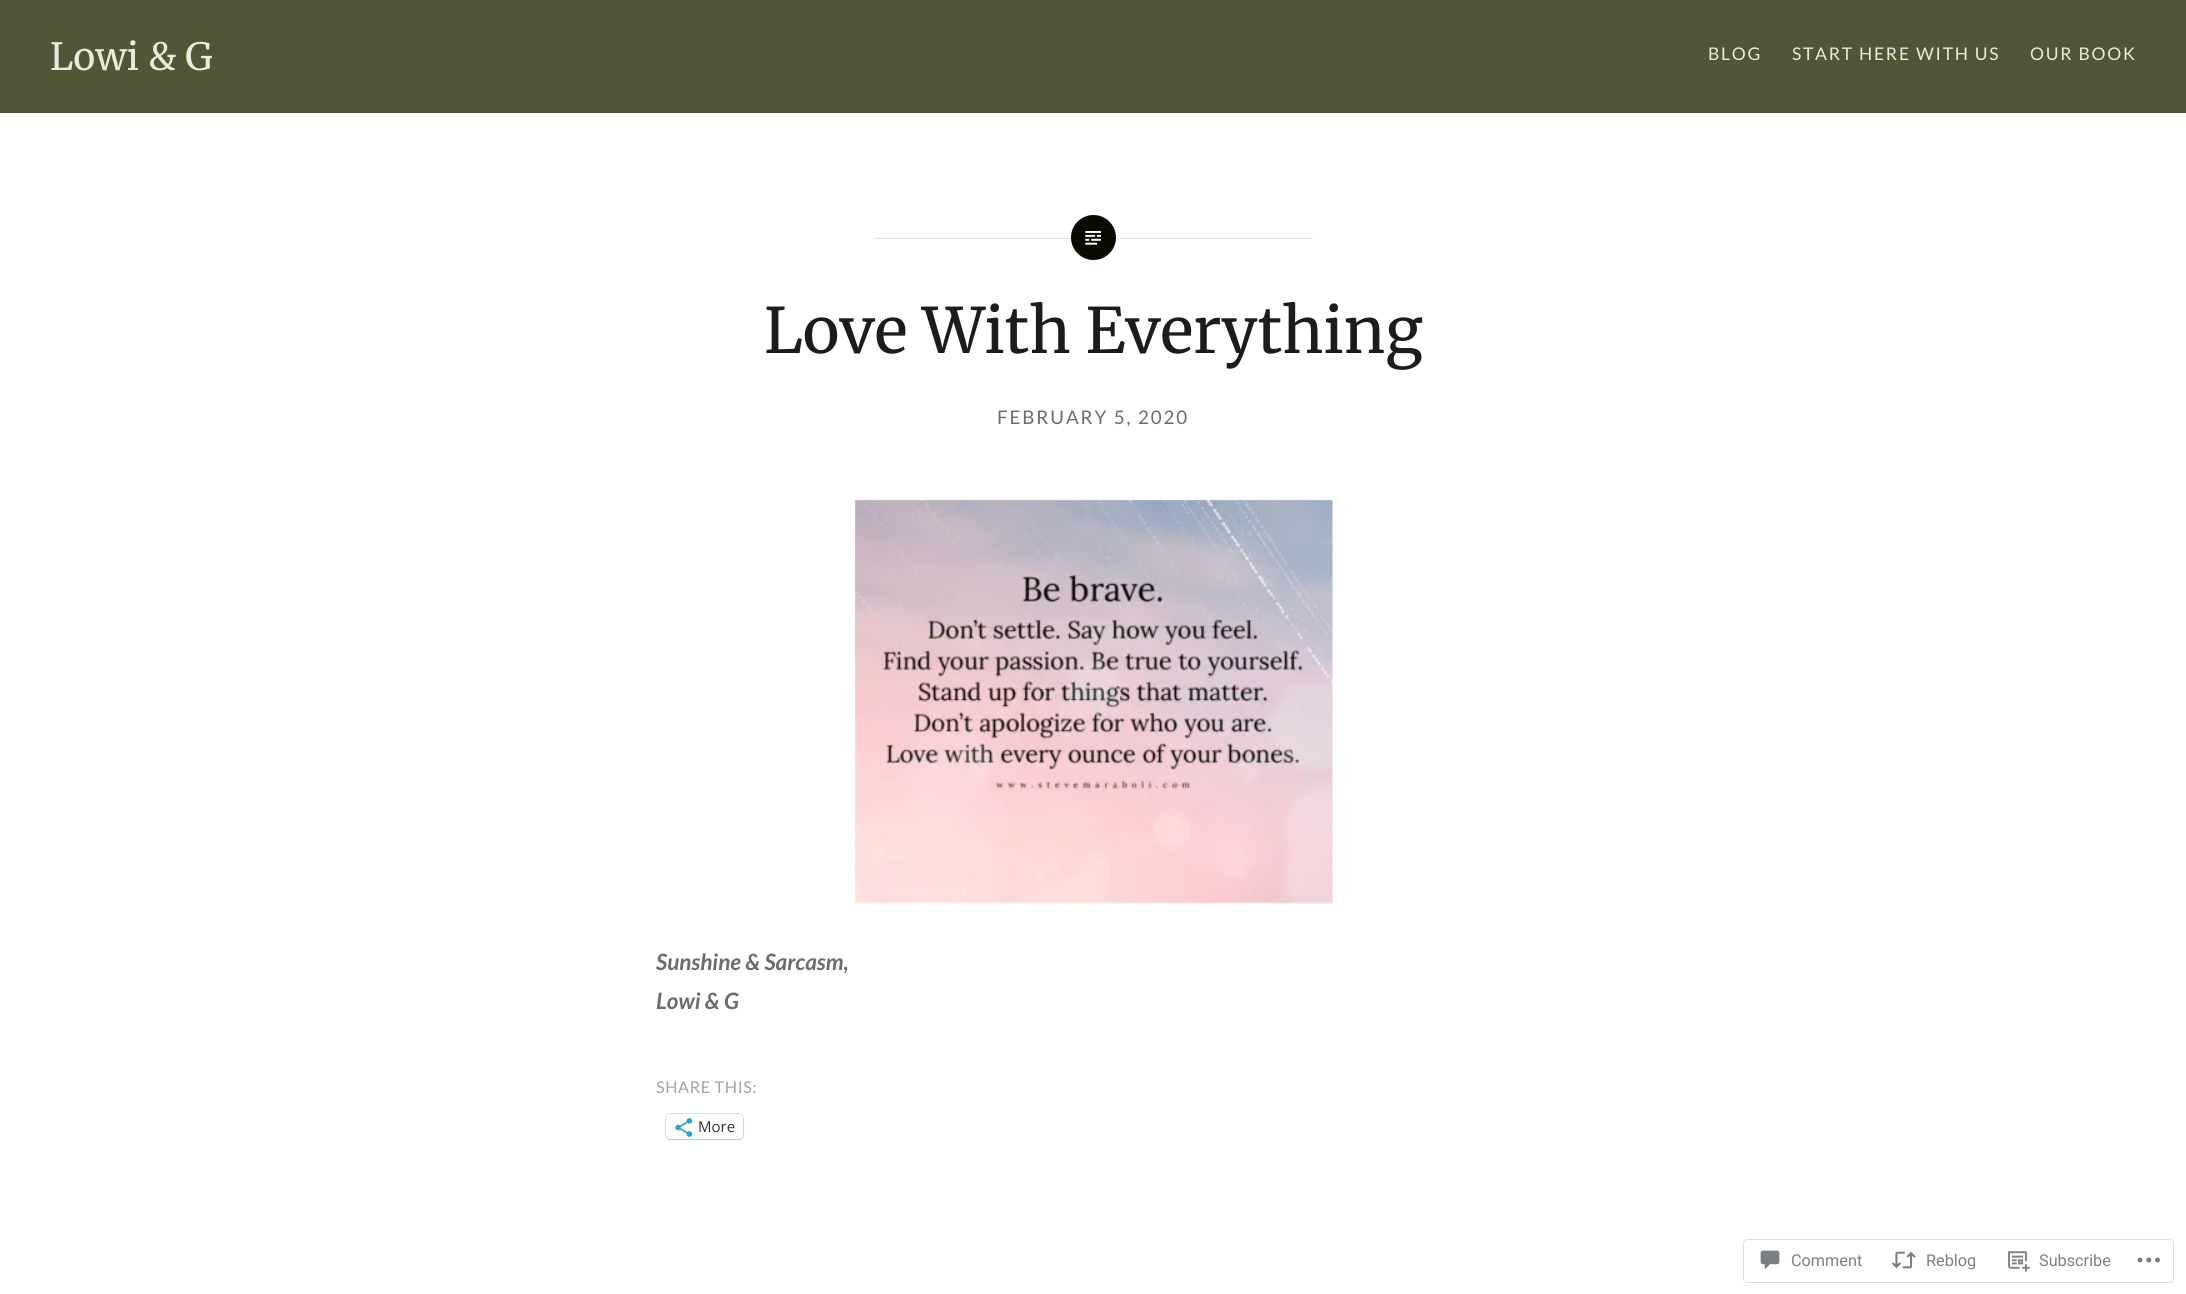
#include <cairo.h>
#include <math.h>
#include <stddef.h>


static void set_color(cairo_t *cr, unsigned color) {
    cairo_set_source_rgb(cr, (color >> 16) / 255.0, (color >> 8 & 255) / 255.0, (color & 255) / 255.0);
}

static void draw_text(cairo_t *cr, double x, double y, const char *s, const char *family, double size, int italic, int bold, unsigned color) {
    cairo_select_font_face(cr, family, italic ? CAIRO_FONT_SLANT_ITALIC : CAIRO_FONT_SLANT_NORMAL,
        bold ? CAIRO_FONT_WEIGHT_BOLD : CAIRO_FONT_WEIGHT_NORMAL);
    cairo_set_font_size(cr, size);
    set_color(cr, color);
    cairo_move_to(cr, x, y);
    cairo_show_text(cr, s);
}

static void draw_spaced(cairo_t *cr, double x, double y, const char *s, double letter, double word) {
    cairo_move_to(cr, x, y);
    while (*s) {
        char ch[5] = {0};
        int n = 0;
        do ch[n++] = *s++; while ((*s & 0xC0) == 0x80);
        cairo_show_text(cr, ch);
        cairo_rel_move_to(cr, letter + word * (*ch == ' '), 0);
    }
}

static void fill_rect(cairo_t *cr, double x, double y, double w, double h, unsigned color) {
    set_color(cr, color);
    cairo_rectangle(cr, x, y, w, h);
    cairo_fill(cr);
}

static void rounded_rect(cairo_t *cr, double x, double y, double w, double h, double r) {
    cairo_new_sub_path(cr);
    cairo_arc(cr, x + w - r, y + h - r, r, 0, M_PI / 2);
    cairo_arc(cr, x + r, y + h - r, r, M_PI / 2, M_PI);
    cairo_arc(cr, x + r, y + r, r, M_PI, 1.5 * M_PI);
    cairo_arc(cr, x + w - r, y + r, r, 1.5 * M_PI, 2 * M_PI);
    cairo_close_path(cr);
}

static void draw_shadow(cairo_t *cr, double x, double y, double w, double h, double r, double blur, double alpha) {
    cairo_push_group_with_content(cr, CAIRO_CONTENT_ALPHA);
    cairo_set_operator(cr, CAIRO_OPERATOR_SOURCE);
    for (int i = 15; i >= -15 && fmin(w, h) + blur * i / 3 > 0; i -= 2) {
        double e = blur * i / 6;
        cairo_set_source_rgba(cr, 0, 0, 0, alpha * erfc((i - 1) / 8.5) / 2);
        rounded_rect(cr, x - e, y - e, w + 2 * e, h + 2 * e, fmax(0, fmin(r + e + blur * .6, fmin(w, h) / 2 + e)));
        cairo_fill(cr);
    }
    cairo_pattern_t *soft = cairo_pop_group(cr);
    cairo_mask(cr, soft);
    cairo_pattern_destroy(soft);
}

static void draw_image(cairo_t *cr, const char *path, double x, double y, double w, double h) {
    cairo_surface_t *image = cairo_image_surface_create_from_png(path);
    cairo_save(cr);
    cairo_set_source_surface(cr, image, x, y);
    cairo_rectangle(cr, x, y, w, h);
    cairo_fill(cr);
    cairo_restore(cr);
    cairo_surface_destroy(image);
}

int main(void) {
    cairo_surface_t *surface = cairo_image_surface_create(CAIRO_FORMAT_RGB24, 2186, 1294);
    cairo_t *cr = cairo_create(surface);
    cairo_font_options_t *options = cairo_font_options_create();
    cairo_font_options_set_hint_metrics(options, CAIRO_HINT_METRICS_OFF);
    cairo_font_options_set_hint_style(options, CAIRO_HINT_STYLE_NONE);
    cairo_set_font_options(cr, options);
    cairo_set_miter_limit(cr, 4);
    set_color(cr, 0xFFFFFF);
    cairo_paint(cr);
    fill_rect(cr, 0, 0, 2186, 113, 0x525636);
    draw_text(cr, 50, 70, "Lowi & G", "Merriweather Light", 37.5, 0, 0, 0xE8ECDE);
    cairo_select_font_face(cr, "Lato", CAIRO_FONT_SLANT_NORMAL, CAIRO_FONT_WEIGHT_NORMAL);
    cairo_set_font_size(cr, 17.5);
    draw_spaced(cr, 1708, 60, "BLOG", 1.75, 0);
    draw_spaced(cr, 1792, 60, "START HERE WITH US", 1.75, 0);
    draw_spaced(cr, 2030, 60, "OUR BOOK", 1.75, 0);
    fill_rect(cr, 875, 238, 438, 1, 0xE0E0E0);
    set_color(cr, 0x080C00);
    cairo_new_path(cr);
    cairo_arc(cr, 1093.5, 237.5, 22.5, 0, 2 * M_PI);
    cairo_fill(cr);
    draw_image(cr, "assets/img1.png", 1085, 231, 16, 14);
    draw_text(cr, 764, 353, "Love With Everything", "Merriweather Light", 62.5, 0, 0, 0x1A1C1E);
    cairo_select_font_face(cr, "Lato", CAIRO_FONT_SLANT_NORMAL, CAIRO_FONT_WEIGHT_NORMAL);
    cairo_set_font_size(cr, 18.75);
    set_color(cr, 0x6A6C6E);
    draw_spaced(cr, 997, 424, "FEBRUARY 5, 2020", 1.9, 0);
    draw_image(cr, "assets/img2.png", 854, 499, 479, 406);
    draw_text(cr, 656, 970, "Sunshine & Sarcasm,", "Lato", 22.5, 1, 1, 0x6A6C6E);
    draw_text(cr, 656, 1009, "Lowi & G", "Lato", 22.5, 1, 1, 0x6A6C6E);
    cairo_select_font_face(cr, "Lato", CAIRO_FONT_SLANT_NORMAL, CAIRO_FONT_WEIGHT_NORMAL);
    cairo_set_font_size(cr, 16.25);
    set_color(cr, 0x9DA5AD);
    draw_spaced(cr, 656, 1093, "SHARE THIS:", 0.6, 0);
    rounded_rect(cr, 665.5, 1113.5, 78, 26, 5.5);
    set_color(cr, 0xE0E0E0);
    cairo_set_line_width(cr, 1);
    cairo_stroke(cr);
    set_color(cr, 0x000000);
    draw_shadow(cr, 666, 1115, 77, 25, 5, 1, 0.12);
    set_color(cr, 0xFFFFFF);
    rounded_rect(cr, 666, 1114, 77, 25, 5);
    cairo_fill(cr);
    draw_image(cr, "assets/img3.png", 675, 1118, 18, 19);
    draw_text(cr, 698, 1132, "More", "Open Sans", 15, 0, 0, 0x2C3338);
    rounded_rect(cr, 1743.5, 1239.5, 430, 43, 3.5);
    set_color(cr, 0xDDDDDF);
    cairo_stroke(cr);
    draw_image(cr, "assets/img4.png", 1760, 1250, 20, 20);
    draw_text(cr, 1791, 1266, "Comment", "Roboto", 16.25, 0, 0, 0x7B7F85);
    draw_image(cr, "assets/img5.png", 1891, 1251, 25, 18);
    draw_text(cr, 1926, 1266, "Reblog", "Roboto", 16.25, 0, 0, 0x7B7F85);
    draw_image(cr, "assets/img6.png", 2008, 1251, 22, 21);
    draw_text(cr, 2039, 1266, "Subscribe", "Roboto", 16.25, 0, 0, 0x7B7F85);
    draw_image(cr, "assets/img7.png", 2137, 1257, 23, 6);
    cairo_surface_write_to_png(surface, "output.png");
    cairo_font_options_destroy(options);
    cairo_destroy(cr);
    cairo_surface_destroy(surface);
    return 0;
}
